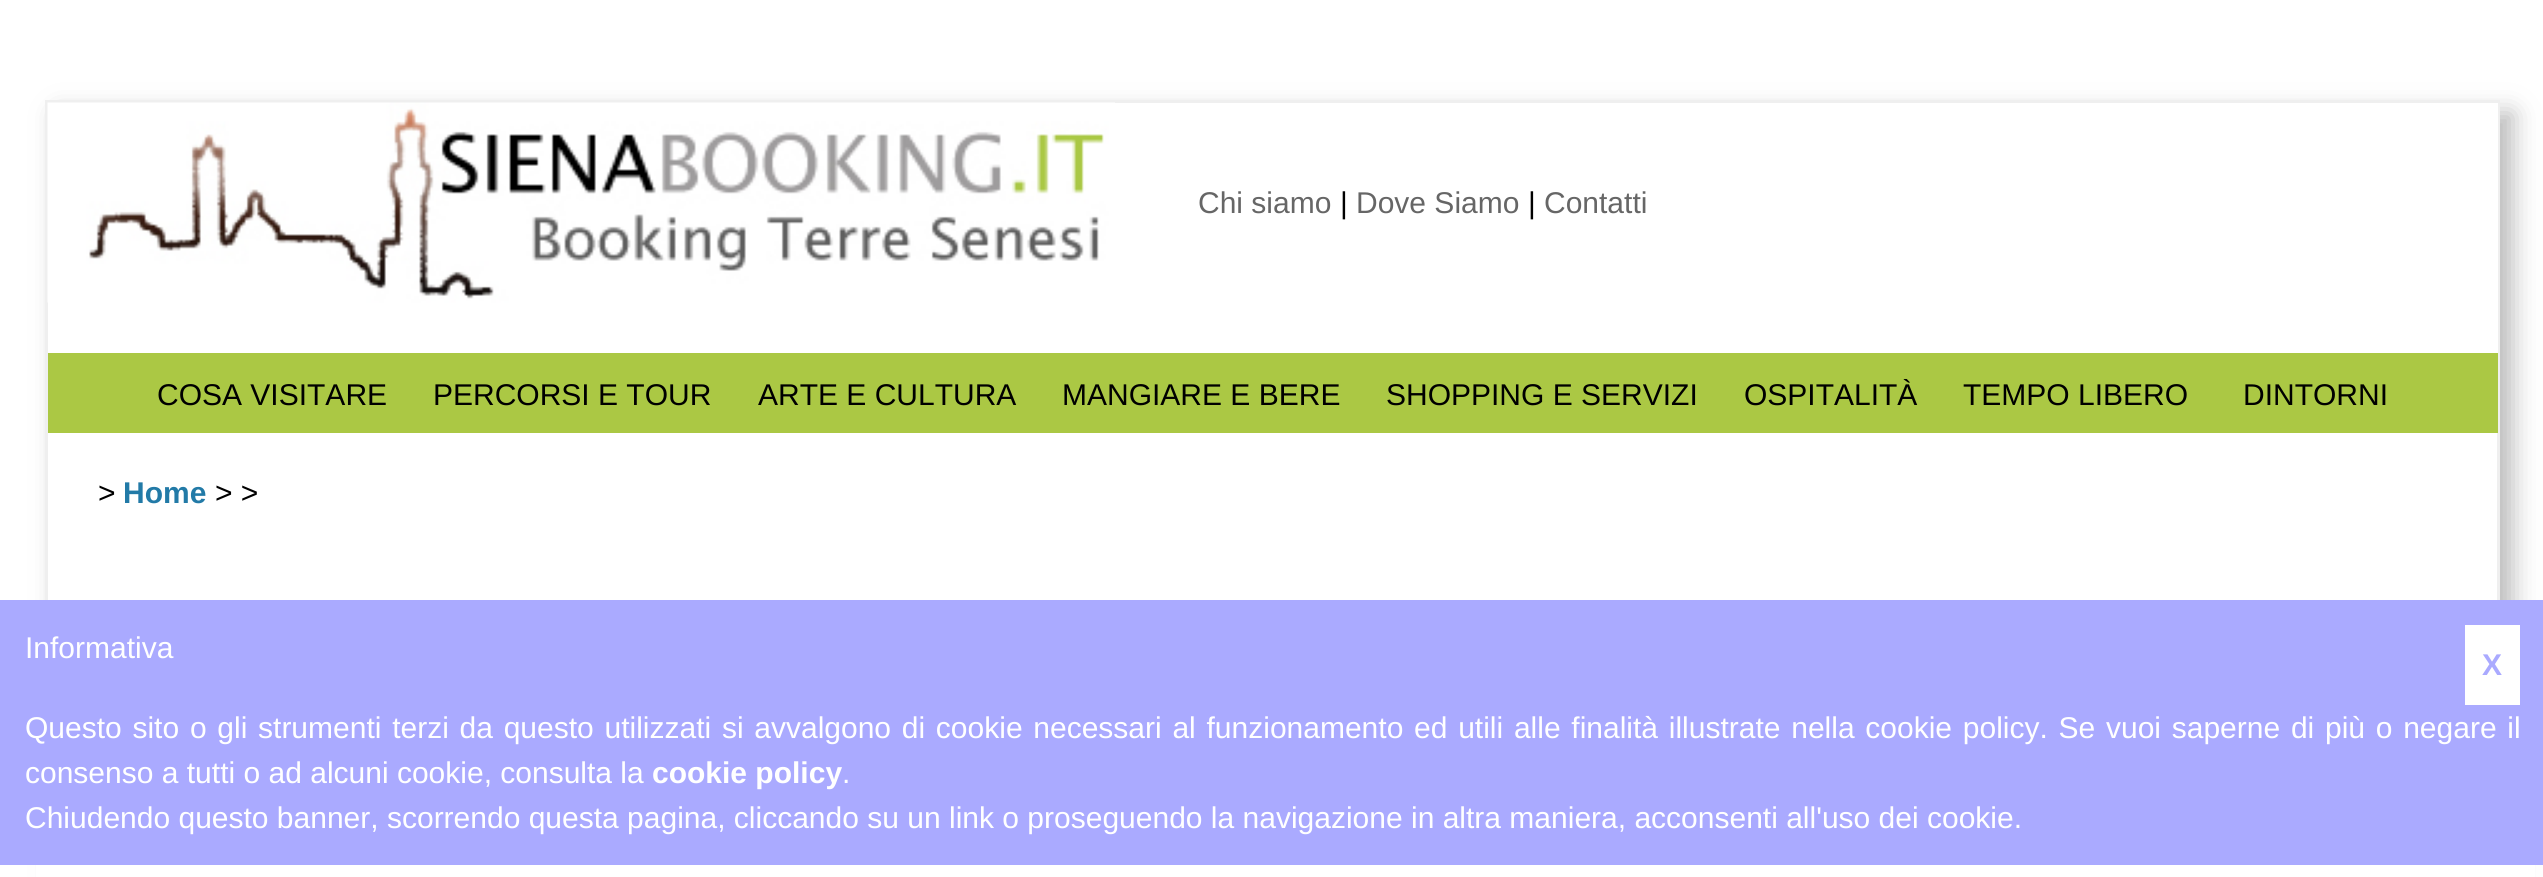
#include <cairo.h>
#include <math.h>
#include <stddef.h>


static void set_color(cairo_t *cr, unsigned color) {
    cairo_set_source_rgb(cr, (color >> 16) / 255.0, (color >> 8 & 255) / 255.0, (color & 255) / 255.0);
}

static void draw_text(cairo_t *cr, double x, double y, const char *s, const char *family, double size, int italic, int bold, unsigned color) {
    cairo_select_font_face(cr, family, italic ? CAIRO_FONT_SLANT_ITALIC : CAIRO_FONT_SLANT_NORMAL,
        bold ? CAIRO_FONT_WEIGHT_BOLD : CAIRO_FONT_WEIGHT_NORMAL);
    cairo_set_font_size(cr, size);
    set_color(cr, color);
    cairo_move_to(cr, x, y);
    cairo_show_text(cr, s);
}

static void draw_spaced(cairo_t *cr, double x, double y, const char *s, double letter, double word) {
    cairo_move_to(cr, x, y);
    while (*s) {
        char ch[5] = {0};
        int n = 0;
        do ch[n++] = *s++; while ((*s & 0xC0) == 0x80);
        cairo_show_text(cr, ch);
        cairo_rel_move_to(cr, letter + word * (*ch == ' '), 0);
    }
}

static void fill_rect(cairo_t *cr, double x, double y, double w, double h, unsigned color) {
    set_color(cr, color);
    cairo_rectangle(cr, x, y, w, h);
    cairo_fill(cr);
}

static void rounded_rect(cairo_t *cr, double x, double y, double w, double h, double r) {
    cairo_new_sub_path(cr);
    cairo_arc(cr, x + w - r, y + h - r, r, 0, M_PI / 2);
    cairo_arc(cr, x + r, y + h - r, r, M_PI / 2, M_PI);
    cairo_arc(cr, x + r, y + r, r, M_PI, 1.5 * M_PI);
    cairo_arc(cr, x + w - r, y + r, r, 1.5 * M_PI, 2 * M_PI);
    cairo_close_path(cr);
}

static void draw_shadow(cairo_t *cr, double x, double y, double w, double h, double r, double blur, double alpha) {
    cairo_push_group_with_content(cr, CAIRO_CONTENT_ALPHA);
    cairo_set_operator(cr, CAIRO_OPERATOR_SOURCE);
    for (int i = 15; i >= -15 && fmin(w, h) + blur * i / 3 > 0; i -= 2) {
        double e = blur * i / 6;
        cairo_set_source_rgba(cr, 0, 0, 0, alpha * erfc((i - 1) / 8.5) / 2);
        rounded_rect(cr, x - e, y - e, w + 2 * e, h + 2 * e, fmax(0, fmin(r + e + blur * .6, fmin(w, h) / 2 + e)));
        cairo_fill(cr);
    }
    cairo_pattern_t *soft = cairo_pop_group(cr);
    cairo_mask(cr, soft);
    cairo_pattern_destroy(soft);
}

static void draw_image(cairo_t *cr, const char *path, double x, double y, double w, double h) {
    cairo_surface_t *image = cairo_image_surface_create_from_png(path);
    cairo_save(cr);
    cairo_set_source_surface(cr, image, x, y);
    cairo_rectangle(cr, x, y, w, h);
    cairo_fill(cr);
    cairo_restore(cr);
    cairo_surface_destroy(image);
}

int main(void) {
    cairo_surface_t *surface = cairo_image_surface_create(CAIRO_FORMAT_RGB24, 2543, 877);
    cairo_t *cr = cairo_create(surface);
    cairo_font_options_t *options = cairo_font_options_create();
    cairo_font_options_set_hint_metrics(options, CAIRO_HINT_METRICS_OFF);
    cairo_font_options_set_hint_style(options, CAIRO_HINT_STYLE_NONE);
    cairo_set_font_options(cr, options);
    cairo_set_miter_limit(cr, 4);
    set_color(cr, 0xFFFFFF);
    cairo_paint(cr);
    cairo_save(cr);
    cairo_set_fill_rule(cr, CAIRO_FILL_RULE_EVEN_ODD);
    cairo_new_path(cr);
    cairo_move_to(cr, 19, 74);
    cairo_line_to(cr, 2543, 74);
    cairo_line_to(cr, 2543, 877);
    cairo_line_to(cr, 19, 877);
    cairo_close_path(cr);
    cairo_move_to(cr, 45, 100);
    cairo_line_to(cr, 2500, 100);
    cairo_line_to(cr, 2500, 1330);
    cairo_line_to(cr, 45, 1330);
    cairo_close_path(cr);
    cairo_clip(cr);
    set_color(cr, 0xBBBBBB);
    draw_shadow(cr, 58, 113, 2455, 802, 0, 12.5, 1);
    cairo_restore(cr);
    cairo_rectangle(cr, 46.5, 101.5, 2452, 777);
    set_color(cr, 0xEFEFEF);
    cairo_set_line_width(cr, 3);
    cairo_stroke(cr);
    fill_rect(cr, 2497, 103, 1, 250, 0xFFFFFF);
    draw_image(cr, "assets/img1.png", 47, 102, 1068, 201);
    draw_text(cr, 1198, 213, "Chi siamo", "Liberation Sans", 30, 0, 0, 0x666666);
    draw_text(cr, 1340, 213, "|", "Liberation Sans", 30, 0, 0, 0x000000);
    draw_text(cr, 1356, 213, "Dove Siamo", "Liberation Sans", 30, 0, 0, 0x666666);
    draw_text(cr, 1528, 213, "|", "Liberation Sans", 30, 0, 0, 0x000000);
    draw_text(cr, 1544, 213, "Contatti", "Liberation Sans", 30, 0, 0, 0x666666);
    fill_rect(cr, 48, 353, 2450, 80, 0xABC844);
    draw_text(cr, 157, 405, "COSA VISITARE", "Liberation Sans", 30, 0, 0, 0x000000);
    draw_text(cr, 433, 405, "PERCORSI E TOUR", "Liberation Sans", 30, 0, 0, 0x000000);
    draw_text(cr, 758, 405, "ARTE E CULTURA", "Liberation Sans", 30, 0, 0, 0x000000);
    draw_text(cr, 1062, 405, "MANGIARE E BERE", "Liberation Sans", 30, 0, 0, 0x000000);
    draw_text(cr, 1386, 405, "SHOPPING E SERVIZI", "Liberation Sans", 30, 0, 0, 0x000000);
    draw_text(cr, 1744, 405, "OSPITALITÀ", "Liberation Sans", 30, 0, 0, 0x000000);
    draw_text(cr, 1963, 405, "TEMPO LIBERO", "Liberation Sans", 30, 0, 0, 0x000000);
    draw_text(cr, 2243, 405, "DINTORNI", "Liberation Sans", 30, 0, 0, 0x000000);
    draw_text(cr, 98, 503, ">", "Liberation Sans", 30, 0, 0, 0x000000);
    draw_text(cr, 123, 503, "Home", "Liberation Sans", 30, 0, 1, 0x227AA7);
    draw_text(cr, 215, 503, "> >", "Liberation Sans", 30, 0, 0, 0x000000);
    fill_rect(cr, 0, 600, 2543, 265, 0xAAAAFF);
    fill_rect(cr, 36, 865, 2499, 12, 0xFFFFFF);
    draw_text(cr, 25, 658, "Informativa", "Liberation Sans", 30, 0, 0, 0xFFFFFF);
    fill_rect(cr, 2465, 625, 55, 80, 0xFFFFFF);
    draw_text(cr, 2482, 675, "X", "Liberation Sans", 30, 0, 1, 0xAAAAFF);
    cairo_select_font_face(cr, "Liberation Sans", CAIRO_FONT_SLANT_NORMAL, CAIRO_FONT_WEIGHT_NORMAL);
    set_color(cr, 0xFFFFFF);
    draw_spaced(cr, 25, 738, "Questo sito o gli strumenti terzi da questo utilizzati si avvalgono di cookie necessari al funzionamento ed utili alle finalità illustrate nella cookie policy. Se vuoi saperne di più o negare il", 0, 2.4);
    draw_text(cr, 25, 783, "consenso a tutti o ad alcuni cookie, consulta la", "Liberation Sans", 30, 0, 0, 0xFFFFFF);
    draw_text(cr, 652, 783, "cookie policy", "Liberation Sans", 30, 0, 1, 0xFFFFFF);
    draw_text(cr, 842, 783, ".", "Liberation Sans", 30, 0, 0, 0xFFFFFF);
    draw_text(cr, 25, 828, "Chiudendo questo banner, scorrendo questa pagina, cliccando su un link o proseguendo la navigazione in altra maniera, acconsenti all'uso dei cookie.", "Liberation Sans", 30, 0, 0, 0xFFFFFF);
    cairo_surface_write_to_png(surface, "output.png");
    cairo_font_options_destroy(options);
    cairo_destroy(cr);
    cairo_surface_destroy(surface);
    return 0;
}
